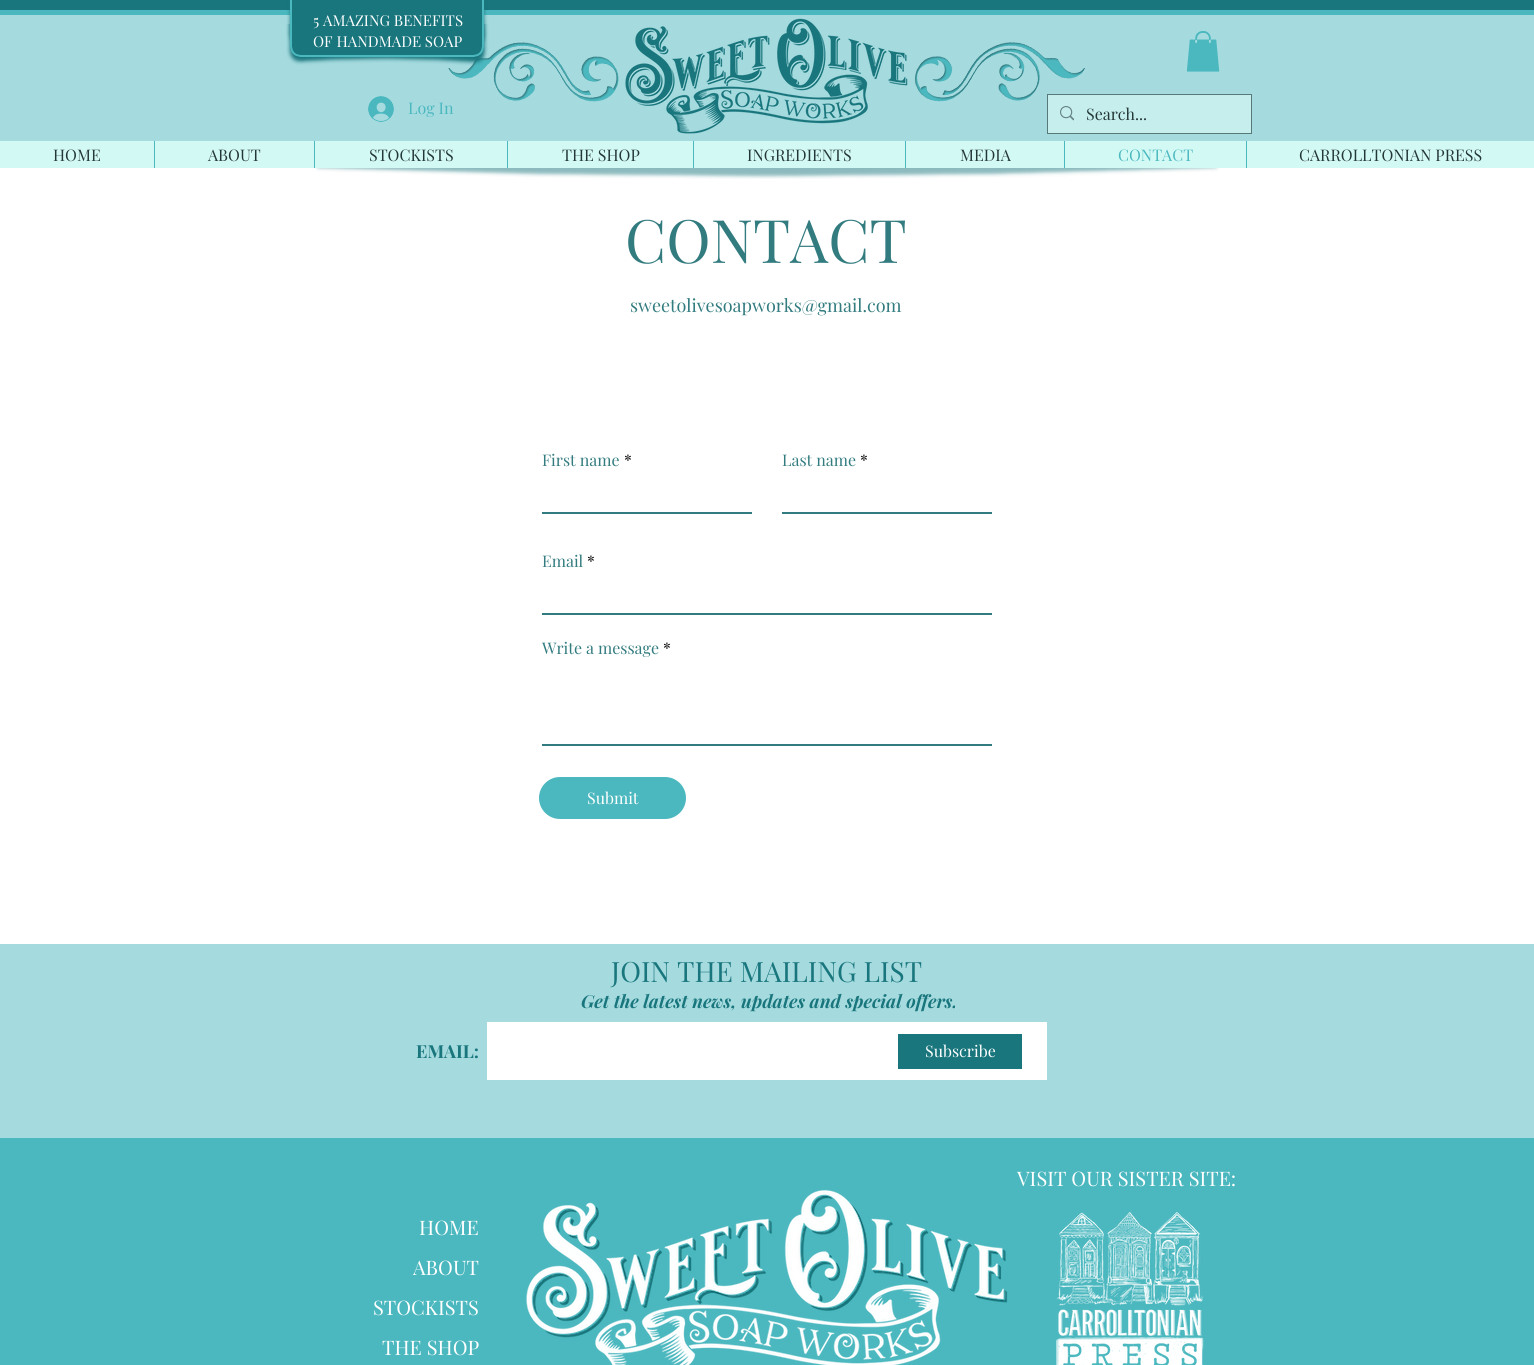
#include <cairo.h>
#include <math.h>
#include <stddef.h>


static void set_color(cairo_t *cr, unsigned color) {
    cairo_set_source_rgb(cr, (color >> 16) / 255.0, (color >> 8 & 255) / 255.0, (color & 255) / 255.0);
}

static void draw_text(cairo_t *cr, double x, double y, const char *s, const char *family, double size, int italic, int bold, unsigned color) {
    cairo_select_font_face(cr, family, italic ? CAIRO_FONT_SLANT_ITALIC : CAIRO_FONT_SLANT_NORMAL,
        bold ? CAIRO_FONT_WEIGHT_BOLD : CAIRO_FONT_WEIGHT_NORMAL);
    cairo_set_font_size(cr, size);
    set_color(cr, color);
    cairo_move_to(cr, x, y);
    cairo_show_text(cr, s);
}

static void fill_rect(cairo_t *cr, double x, double y, double w, double h, unsigned color) {
    set_color(cr, color);
    cairo_rectangle(cr, x, y, w, h);
    cairo_fill(cr);
}

static void rounded_rect(cairo_t *cr, double x, double y, double w, double h, double r) {
    cairo_new_sub_path(cr);
    cairo_arc(cr, x + w - r, y + h - r, r, 0, M_PI / 2);
    cairo_arc(cr, x + r, y + h - r, r, M_PI / 2, M_PI);
    cairo_arc(cr, x + r, y + r, r, M_PI, 1.5 * M_PI);
    cairo_arc(cr, x + w - r, y + r, r, 1.5 * M_PI, 2 * M_PI);
    cairo_close_path(cr);
}

static void draw_image(cairo_t *cr, const char *path, double x, double y, double w, double h) {
    cairo_surface_t *image = cairo_image_surface_create_from_png(path);
    cairo_save(cr);
    cairo_set_source_surface(cr, image, x, y);
    cairo_rectangle(cr, x, y, w, h);
    cairo_fill(cr);
    cairo_restore(cr);
    cairo_surface_destroy(image);
}

int main(void) {
    cairo_surface_t *surface = cairo_image_surface_create(CAIRO_FORMAT_RGB24, 1534, 1365);
    cairo_t *cr = cairo_create(surface);
    cairo_font_options_t *options = cairo_font_options_create();
    cairo_font_options_set_hint_metrics(options, CAIRO_HINT_METRICS_OFF);
    cairo_font_options_set_hint_style(options, CAIRO_HINT_STYLE_NONE);
    cairo_set_font_options(cr, options);
    cairo_set_miter_limit(cr, 4);
    set_color(cr, 0xFFFFFF);
    cairo_paint(cr);
    fill_rect(cr, 0, 0, 1534, 10, 0x19767D);
    fill_rect(cr, 0, 10, 1534, 5, 0x4BB8BF);
    fill_rect(cr, 0, 15, 1534, 126, 0xA5DBDF);
    draw_image(cr, "assets/img3.png", 448, 42, 171, 60);
    draw_image(cr, "assets/img1.png", 286, 0, 203, 66);
    draw_text(cr, 313, 26, "5 AMAZING BENEFITS", "Playfair Display", 15, 0, 0, 0xFFFFFF);
    draw_text(cr, 313, 47, "OF HANDMADE SOAP", "Playfair Display", 15, 0, 0, 0xFFFFFF);
    draw_image(cr, "assets/img2.png", 625, 18, 283, 116);
    draw_image(cr, "assets/img4.png", 914, 42, 171, 60);
    draw_image(cr, "assets/img5.png", 1186, 31, 34, 41);
    draw_image(cr, "assets/img6.png", 368, 96, 26, 26);
    draw_text(cr, 408, 114, "Log In", "Playfair Display", 16, 0, 0, 0x4BB8BF);
    cairo_rectangle(cr, 1047.5, 94.5, 204, 39);
    set_color(cr, 0x58797A);
    cairo_set_line_width(cr, 1);
    cairo_stroke(cr);
    fill_rect(cr, 1048, 95, 203, 38, 0xC5EEED);
    draw_image(cr, "assets/img7.png", 1060, 106, 14, 15);
    draw_text(cr, 1086, 120, "Search...", "Playfair Display", 16, 0, 0, 0x243737);
    fill_rect(cr, 0, 141, 1534, 27, 0xD3F9F5);
    draw_text(cr, 53, 161, "HOME", "Playfair Display", 16, 0, 0, 0x243737);
    fill_rect(cr, 154, 141, 1, 27, 0x4BB8BF);
    draw_text(cr, 208, 161, "ABOUT", "Playfair Display", 16, 0, 0, 0x243737);
    fill_rect(cr, 314, 141, 1, 27, 0x4BB8BF);
    draw_text(cr, 369, 161, "STOCKISTS", "Playfair Display", 16, 0, 0, 0x243737);
    fill_rect(cr, 507, 141, 1, 27, 0x4BB8BF);
    draw_text(cr, 562, 161, "THE SHOP", "Playfair Display", 16, 0, 0, 0x243737);
    fill_rect(cr, 693, 141, 1, 27, 0x4BB8BF);
    draw_text(cr, 747, 161, "INGREDIENTS", "Playfair Display", 16, 0, 0, 0x243737);
    fill_rect(cr, 905, 141, 1, 27, 0x4BB8BF);
    draw_text(cr, 960, 161, "MEDIA", "Playfair Display", 16, 0, 0, 0x243737);
    fill_rect(cr, 1064, 141, 1, 27, 0x4BB8BF);
    draw_text(cr, 1118, 161, "CONTACT", "Playfair Display", 16, 0, 0, 0x4BB8BF);
    fill_rect(cr, 1246, 141, 1, 27, 0x4BB8BF);
    draw_text(cr, 1299, 161, "CARROLLTONIAN PRESS", "Playfair Display", 16, 0, 0, 0x243737);
    draw_image(cr, "assets/img8.png", 315, 168, 904, 11);
    draw_text(cr, 625, 263, "CONTACT", "Playfair Display", 60, 0, 0, 0x327B7F);
    draw_text(cr, 630, 312, "sweetolivesoapworks@gmail.com", "Playfair Display", 18, 0, 0, 0x327B7F);
    draw_text(cr, 542, 466, "First name", "Playfair Display", 16, 0, 0, 0x327B7F);
    draw_text(cr, 624, 466, "*", "Playfair Display", 16, 0, 0, 0x000000);
    fill_rect(cr, 542, 512, 210, 2, 0x327B7F);
    draw_text(cr, 782, 466, "Last name", "Playfair Display", 16, 0, 0, 0x327B7F);
    draw_text(cr, 860, 466, "*", "Playfair Display", 16, 0, 0, 0x000000);
    fill_rect(cr, 782, 512, 210, 2, 0x327B7F);
    draw_text(cr, 542, 567, "Email", "Playfair Display", 16, 0, 0, 0x327B7F);
    draw_text(cr, 587, 567, "*", "Playfair Display", 16, 0, 0, 0x000000);
    fill_rect(cr, 542, 613, 450, 2, 0x327B7F);
    draw_text(cr, 542, 654, "Write a message", "Playfair Display", 16, 0, 0, 0x327B7F);
    draw_text(cr, 663, 654, "*", "Playfair Display", 16, 0, 0, 0x000000);
    fill_rect(cr, 542, 744, 450, 2, 0x327B7F);
    set_color(cr, 0x4BB8BF);
    rounded_rect(cr, 539, 777, 147, 42, 21);
    cairo_fill(cr);
    draw_text(cr, 587, 804, "Submit", "Playfair Display", 16, 0, 0, 0xFFFFFF);
    fill_rect(cr, 0, 944, 1534, 194, 0xA5DBDF);
    draw_text(cr, 416, 1058, "EMAIL:", "Playfair Display", 18, 0, 1, 0x19767D);
    draw_text(cr, 611, 982, "JOIN THE MAILING LIST", "Playfair Display", 28, 0, 0, 0x19767D);
    draw_text(cr, 581, 1008, "Get the latest news, updates and special offers.", "Playfair Display", 18, 1, 1, 0x19767D);
    fill_rect(cr, 487, 1022, 560, 58, 0xFFFFFF);
    fill_rect(cr, 898, 1034, 124, 35, 0x19767D);
    draw_text(cr, 925, 1057, "Subscribe", "Playfair Display", 16, 0, 0, 0xFFFFFF);
    fill_rect(cr, 0, 1138, 1534, 227, 0x4BB8BF);
    draw_text(cr, 1017, 1186, "VISIT OUR SISTER SITE:", "Playfair Display", 20, 0, 0, 0xFFFFFF);
    draw_text(cr, 419, 1235, "HOME", "Playfair Display", 20, 0, 0, 0xFFFFFF);
    draw_text(cr, 413, 1275, "ABOUT", "Playfair Display", 20, 0, 0, 0xFFFFFF);
    draw_text(cr, 373, 1315, "STOCKISTS", "Playfair Display", 20, 0, 0, 0xFFFFFF);
    draw_text(cr, 382, 1355, "THE SHOP", "Playfair Display", 20, 0, 0, 0xFFFFFF);
    draw_image(cr, "assets/img9.png", 526, 1189, 482, 176);
    draw_image(cr, "assets/img10.png", 1056, 1212, 148, 153);
    cairo_surface_write_to_png(surface, "output.png");
    cairo_font_options_destroy(options);
    cairo_destroy(cr);
    cairo_surface_destroy(surface);
    return 0;
}
